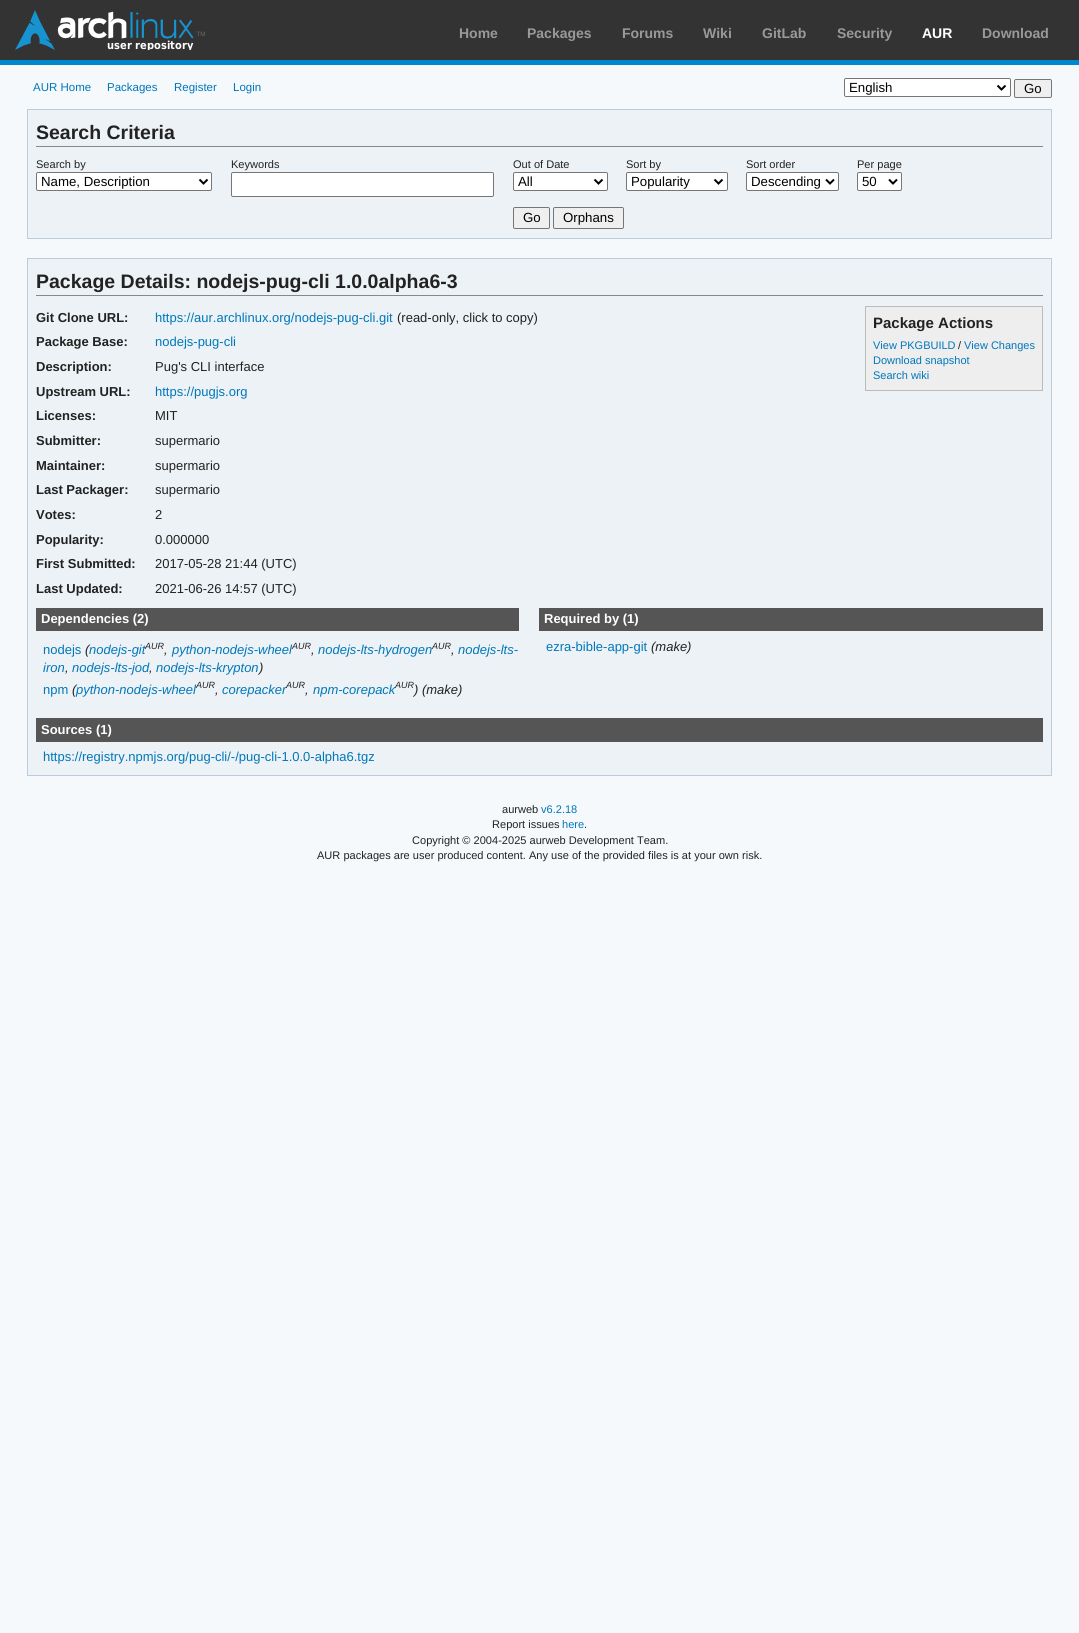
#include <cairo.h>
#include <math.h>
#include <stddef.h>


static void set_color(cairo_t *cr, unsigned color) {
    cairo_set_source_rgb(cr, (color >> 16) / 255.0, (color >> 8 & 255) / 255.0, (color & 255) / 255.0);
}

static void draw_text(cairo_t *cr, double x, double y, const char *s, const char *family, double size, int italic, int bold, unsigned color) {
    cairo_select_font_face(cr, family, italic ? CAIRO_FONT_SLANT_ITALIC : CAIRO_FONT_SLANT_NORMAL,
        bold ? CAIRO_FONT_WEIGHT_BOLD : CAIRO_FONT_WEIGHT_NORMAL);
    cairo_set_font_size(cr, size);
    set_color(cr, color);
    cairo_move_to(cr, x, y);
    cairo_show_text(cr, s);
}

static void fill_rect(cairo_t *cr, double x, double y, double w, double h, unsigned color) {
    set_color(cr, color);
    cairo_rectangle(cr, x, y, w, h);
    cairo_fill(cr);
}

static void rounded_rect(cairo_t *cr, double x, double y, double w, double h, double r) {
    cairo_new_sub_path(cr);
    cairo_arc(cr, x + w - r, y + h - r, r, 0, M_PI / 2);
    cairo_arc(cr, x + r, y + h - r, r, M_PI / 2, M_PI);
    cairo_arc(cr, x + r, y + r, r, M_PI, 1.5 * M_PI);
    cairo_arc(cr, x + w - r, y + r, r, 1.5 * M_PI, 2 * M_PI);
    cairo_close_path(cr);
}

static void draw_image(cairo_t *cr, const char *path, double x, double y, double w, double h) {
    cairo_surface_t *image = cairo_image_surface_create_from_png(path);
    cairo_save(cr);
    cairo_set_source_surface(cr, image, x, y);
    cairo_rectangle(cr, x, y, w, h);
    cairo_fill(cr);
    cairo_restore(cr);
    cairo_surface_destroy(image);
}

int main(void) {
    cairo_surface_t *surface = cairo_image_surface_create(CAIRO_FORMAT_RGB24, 1079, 1633);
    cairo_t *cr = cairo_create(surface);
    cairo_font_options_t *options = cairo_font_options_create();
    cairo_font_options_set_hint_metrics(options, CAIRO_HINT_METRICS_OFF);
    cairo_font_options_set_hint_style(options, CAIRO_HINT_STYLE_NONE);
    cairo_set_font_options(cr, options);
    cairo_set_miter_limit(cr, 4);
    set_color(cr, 0xF6F9FC);
    cairo_paint(cr);
    fill_rect(cr, 0, 0, 1079, 60, 0x333333);
    fill_rect(cr, 0, 60, 1079, 5, 0x0088CC);
    draw_image(cr, "assets/img1.png", 15, 10, 190, 40);
    draw_text(cr, 459, 38, "Home", "Liberation Sans", 14, 0, 1, 0x999999);
    draw_text(cr, 527, 38, "Packages", "Liberation Sans", 14, 0, 1, 0x999999);
    draw_text(cr, 622, 38, "Forums", "Liberation Sans", 14, 0, 1, 0x999999);
    draw_text(cr, 703, 38, "Wiki", "Liberation Sans", 14, 0, 1, 0x999999);
    draw_text(cr, 762, 38, "GitLab", "Liberation Sans", 14, 0, 1, 0x999999);
    draw_text(cr, 837, 38, "Security", "Liberation Sans", 14, 0, 1, 0x999999);
    draw_text(cr, 922, 38, "AUR", "Liberation Sans", 14, 0, 1, 0xFFFFFF);
    draw_text(cr, 982, 38, "Download", "Liberation Sans", 14, 0, 1, 0x999999);
    draw_text(cr, 33, 91, "AUR Home", "Liberation Sans", 11.5, 0, 0, 0x0077BB);
    draw_text(cr, 107, 91, "Packages", "Liberation Sans", 11.5, 0, 0, 0x0077BB);
    draw_text(cr, 174, 91, "Register", "Liberation Sans", 11.5, 0, 0, 0x0077BB);
    draw_text(cr, 233, 91, "Login", "Liberation Sans", 11.5, 0, 0, 0x0077BB);
    set_color(cr, 0xFFFFFF);
    rounded_rect(cr, 844.5, 78.5, 166, 18, 1.5);
    cairo_fill_preserve(cr);
    set_color(cr, 0x767676);
    cairo_set_line_width(cr, 1);
    cairo_stroke(cr);
    cairo_new_path(cr);
    cairo_move_to(cr, 997.5, 85.5);
    cairo_line_to(cr, 1001.5, 89.5);
    cairo_line_to(cr, 1005.5, 85.5);
    set_color(cr, 0x000000);
    cairo_set_line_width(cr, 2);
    cairo_stroke(cr);
    draw_text(cr, 849, 92, "English", "Liberation Sans", 13.25, 0, 0, 0x000000);
    set_color(cr, 0xEFEFEF);
    rounded_rect(cr, 1014.5, 79.5, 37, 18, 1.5);
    cairo_fill_preserve(cr);
    set_color(cr, 0x767676);
    cairo_set_line_width(cr, 1);
    cairo_stroke(cr);
    draw_text(cr, 1024, 93, "Go", "Liberation Sans", 13.25, 0, 0, 0x000000);
    set_color(cr, 0xECF2F5);
    cairo_rectangle(cr, 27.5, 109.5, 1024, 129);
    cairo_fill_preserve(cr);
    set_color(cr, 0xBBCCDD);
    cairo_stroke(cr);
    fill_rect(cr, 36, 146, 1007, 1, 0x888888);
    draw_text(cr, 36, 139, "Search Criteria", "Liberation Sans", 19.5, 0, 1, 0x222222);
    draw_text(cr, 36, 168, "Search by", "Liberation Sans", 11.05, 0, 0, 0x222222);
    set_color(cr, 0xFFFFFF);
    rounded_rect(cr, 36.5, 172.5, 175, 18, 1.5);
    cairo_fill_preserve(cr);
    set_color(cr, 0x767676);
    cairo_stroke(cr);
    cairo_new_path(cr);
    cairo_move_to(cr, 199.5, 179.5);
    cairo_line_to(cr, 203.5, 183.5);
    cairo_line_to(cr, 207.5, 179.5);
    set_color(cr, 0x000000);
    cairo_set_line_width(cr, 2);
    cairo_stroke(cr);
    draw_text(cr, 41, 186, "Name, Description", "Liberation Sans", 13.25, 0, 0, 0x000000);
    draw_text(cr, 231, 168, "Keywords", "Liberation Sans", 11.05, 0, 0, 0x222222);
    set_color(cr, 0xFFFFFF);
    rounded_rect(cr, 231.5, 172.5, 262, 24, 1.5);
    cairo_fill_preserve(cr);
    set_color(cr, 0x767676);
    cairo_set_line_width(cr, 1);
    cairo_stroke(cr);
    draw_text(cr, 513, 168, "Out of Date", "Liberation Sans", 11.05, 0, 0, 0x222222);
    set_color(cr, 0xFFFFFF);
    rounded_rect(cr, 513.5, 172.5, 94, 18, 1.5);
    cairo_fill_preserve(cr);
    set_color(cr, 0x767676);
    cairo_stroke(cr);
    cairo_new_path(cr);
    cairo_move_to(cr, 594.5, 179.5);
    cairo_line_to(cr, 598.5, 183.5);
    cairo_line_to(cr, 602.5, 179.5);
    set_color(cr, 0x000000);
    cairo_set_line_width(cr, 2);
    cairo_stroke(cr);
    draw_text(cr, 518, 186, "All", "Liberation Sans", 13.25, 0, 0, 0x000000);
    draw_text(cr, 626, 168, "Sort by", "Liberation Sans", 11.05, 0, 0, 0x222222);
    set_color(cr, 0xFFFFFF);
    rounded_rect(cr, 626.5, 172.5, 101, 18, 1.5);
    cairo_fill_preserve(cr);
    set_color(cr, 0x767676);
    cairo_set_line_width(cr, 1);
    cairo_stroke(cr);
    cairo_new_path(cr);
    cairo_move_to(cr, 714.5, 179.5);
    cairo_line_to(cr, 718.5, 183.5);
    cairo_line_to(cr, 722.5, 179.5);
    set_color(cr, 0x000000);
    cairo_set_line_width(cr, 2);
    cairo_stroke(cr);
    draw_text(cr, 631, 186, "Popularity", "Liberation Sans", 13.25, 0, 0, 0x000000);
    draw_text(cr, 746, 168, "Sort order", "Liberation Sans", 11.05, 0, 0, 0x222222);
    set_color(cr, 0xFFFFFF);
    rounded_rect(cr, 746.5, 172.5, 92, 18, 1.5);
    cairo_fill_preserve(cr);
    set_color(cr, 0x767676);
    cairo_set_line_width(cr, 1);
    cairo_stroke(cr);
    cairo_new_path(cr);
    cairo_move_to(cr, 826, 179.5);
    cairo_line_to(cr, 830, 183.5);
    cairo_line_to(cr, 834, 179.5);
    set_color(cr, 0x000000);
    cairo_set_line_width(cr, 2);
    cairo_stroke(cr);
    draw_text(cr, 751, 186, "Descending", "Liberation Sans", 13.25, 0, 0, 0x000000);
    draw_text(cr, 857, 168, "Per page", "Liberation Sans", 11.05, 0, 0, 0x222222);
    set_color(cr, 0xFFFFFF);
    rounded_rect(cr, 857.5, 172.5, 44, 18, 1.5);
    cairo_fill_preserve(cr);
    set_color(cr, 0x767676);
    cairo_set_line_width(cr, 1);
    cairo_stroke(cr);
    cairo_new_path(cr);
    cairo_move_to(cr, 889, 179.5);
    cairo_line_to(cr, 893, 183.5);
    cairo_line_to(cr, 897, 179.5);
    set_color(cr, 0x000000);
    cairo_set_line_width(cr, 2);
    cairo_stroke(cr);
    draw_text(cr, 862, 186, "50", "Liberation Sans", 13.25, 0, 0, 0x000000);
    set_color(cr, 0xEFEFEF);
    rounded_rect(cr, 513.5, 207.5, 36, 21, 1.5);
    cairo_fill_preserve(cr);
    set_color(cr, 0x767676);
    cairo_set_line_width(cr, 1);
    cairo_stroke(cr);
    draw_text(cr, 523, 222, "Go", "Liberation Sans", 13.25, 0, 0, 0x000000);
    set_color(cr, 0xEFEFEF);
    rounded_rect(cr, 553.5, 207.5, 70, 21, 1.5);
    cairo_fill_preserve(cr);
    set_color(cr, 0x767676);
    cairo_stroke(cr);
    draw_text(cr, 563, 222, "Orphans", "Liberation Sans", 13.25, 0, 0, 0x000000);
    set_color(cr, 0xECF2F5);
    cairo_rectangle(cr, 27.5, 258.5, 1024, 517);
    cairo_fill_preserve(cr);
    set_color(cr, 0xBBCCDD);
    cairo_stroke(cr);
    fill_rect(cr, 36, 295, 1007, 1, 0x888888);
    draw_text(cr, 36, 288, "Package Details: nodejs-pug-cli 1.0.0alpha6-3", "Liberation Sans", 19.5, 0, 1, 0x222222);
    draw_text(cr, 36, 322, "Git Clone URL:", "Liberation Sans", 13, 0, 1, 0x222222);
    draw_text(cr, 155, 322, "https://aur.archlinux.org/nodejs-pug-cli.git", "Liberation Sans", 13, 0, 0, 0x0077BB);
    draw_text(cr, 397, 322, "(read-only, click to copy)", "Liberation Sans", 13, 0, 0, 0x222222);
    draw_text(cr, 36, 346, "Package Base:", "Liberation Sans", 13, 0, 1, 0x222222);
    draw_text(cr, 155, 346, "nodejs-pug-cli", "Liberation Sans", 13, 0, 0, 0x0077BB);
    draw_text(cr, 36, 371, "Description:", "Liberation Sans", 13, 0, 1, 0x222222);
    draw_text(cr, 155, 371, "Pug's CLI interface", "Liberation Sans", 13, 0, 0, 0x222222);
    draw_text(cr, 36, 396, "Upstream URL:", "Liberation Sans", 13, 0, 1, 0x222222);
    draw_text(cr, 155, 396, "https://pugjs.org", "Liberation Sans", 13, 0, 0, 0x0077BB);
    draw_text(cr, 36, 420, "Licenses:", "Liberation Sans", 13, 0, 1, 0x222222);
    draw_text(cr, 155, 420, "MIT", "Liberation Sans", 13, 0, 0, 0x222222);
    draw_text(cr, 36, 445, "Submitter:", "Liberation Sans", 13, 0, 1, 0x222222);
    draw_text(cr, 155, 445, "supermario", "Liberation Sans", 13, 0, 0, 0x222222);
    draw_text(cr, 36, 470, "Maintainer:", "Liberation Sans", 13, 0, 1, 0x222222);
    draw_text(cr, 155, 470, "supermario", "Liberation Sans", 13, 0, 0, 0x222222);
    draw_text(cr, 36, 494, "Last Packager:", "Liberation Sans", 13, 0, 1, 0x222222);
    draw_text(cr, 155, 494, "supermario", "Liberation Sans", 13, 0, 0, 0x222222);
    draw_text(cr, 36, 519, "Votes:", "Liberation Sans", 13, 0, 1, 0x222222);
    draw_text(cr, 155, 519, "2", "Liberation Sans", 13, 0, 0, 0x222222);
    draw_text(cr, 36, 544, "Popularity:", "Liberation Sans", 13, 0, 1, 0x222222);
    draw_text(cr, 155, 544, "0.000000", "Liberation Sans", 13, 0, 0, 0x222222);
    draw_text(cr, 36, 568, "First Submitted:", "Liberation Sans", 13, 0, 1, 0x222222);
    draw_text(cr, 155, 568, "2017-05-28 21:44 (UTC)", "Liberation Sans", 13, 0, 0, 0x222222);
    draw_text(cr, 36, 593, "Last Updated:", "Liberation Sans", 13, 0, 1, 0x222222);
    draw_text(cr, 155, 593, "2021-06-26 14:57 (UTC)", "Liberation Sans", 13, 0, 0, 0x222222);
    set_color(cr, 0xEEEEEE);
    cairo_rectangle(cr, 865.5, 306.5, 177, 84);
    cairo_fill_preserve(cr);
    set_color(cr, 0xBBBBBB);
    cairo_stroke(cr);
    draw_text(cr, 873, 328, "Package Actions", "Liberation Sans", 15, 0, 1, 0x222222);
    draw_text(cr, 873, 349, "View PKGBUILD", "Liberation Sans", 11, 0, 0, 0x0077BB);
    draw_text(cr, 958, 349, "/", "Liberation Sans", 11, 0, 0, 0x222222);
    draw_text(cr, 964, 349, "View Changes", "Liberation Sans", 11, 0, 0, 0x0077BB);
    draw_text(cr, 873, 364, "Download snapshot", "Liberation Sans", 11, 0, 0, 0x0077BB);
    draw_text(cr, 873, 379, "Search wiki", "Liberation Sans", 11, 0, 0, 0x0077BB);
    fill_rect(cr, 36, 608, 483, 23, 0x555555);
    draw_text(cr, 41, 623, "Dependencies (2)", "Liberation Sans", 13, 0, 1, 0xFFFFFF);
    draw_text(cr, 43, 654, "nodejs", "Liberation Sans", 13, 0, 0, 0x0077BB);
    draw_text(cr, 85, 654, "(", "Liberation Sans", 13, 1, 0, 0x222222);
    draw_text(cr, 89, 654, "nodejs-git", "Liberation Sans", 13, 1, 0, 0x0077BB);
    draw_text(cr, 145, 649, "AUR", "Liberation Sans", 9, 1, 0, 0x222222);
    draw_text(cr, 164, 654, ",", "Liberation Sans", 13, 1, 0, 0x222222);
    draw_text(cr, 172, 654, "python-nodejs-wheel", "Liberation Sans", 13, 1, 0, 0x0077BB);
    draw_text(cr, 292, 649, "AUR", "Liberation Sans", 9, 1, 0, 0x222222);
    draw_text(cr, 311, 654, ",", "Liberation Sans", 13, 1, 0, 0x222222);
    draw_text(cr, 318, 654, "nodejs-lts-hydrogen", "Liberation Sans", 13, 1, 0, 0x0077BB);
    draw_text(cr, 432, 649, "AUR", "Liberation Sans", 9, 1, 0, 0x222222);
    draw_text(cr, 451, 654, ",", "Liberation Sans", 13, 1, 0, 0x222222);
    draw_text(cr, 458, 654, "nodejs-lts-", "Liberation Sans", 13, 1, 0, 0x0077BB);
    draw_text(cr, 43, 672, "iron", "Liberation Sans", 13, 1, 0, 0x0077BB);
    draw_text(cr, 65, 672, ",", "Liberation Sans", 13, 1, 0, 0x222222);
    draw_text(cr, 72, 672, "nodejs-lts-jod", "Liberation Sans", 13, 1, 0, 0x0077BB);
    draw_text(cr, 149, 672, ",", "Liberation Sans", 13, 1, 0, 0x222222);
    draw_text(cr, 156, 672, "nodejs-lts-krypton", "Liberation Sans", 13, 1, 0, 0x0077BB);
    draw_text(cr, 259, 672, ")", "Liberation Sans", 13, 1, 0, 0x222222);
    draw_text(cr, 72, 694, "(", "Liberation Sans", 13, 1, 0, 0x222222);
    draw_text(cr, 76, 694, "python-nodejs-wheel", "Liberation Sans", 13, 1, 0, 0x0077BB);
    draw_text(cr, 196, 688, "AUR", "Liberation Sans", 9, 1, 0, 0x222222);
    draw_text(cr, 222, 694, "corepacker", "Liberation Sans", 13, 1, 0, 0x0077BB);
    draw_text(cr, 286, 688, "AUR", "Liberation Sans", 9, 1, 0, 0x222222);
    draw_text(cr, 313, 694, "npm-corepack", "Liberation Sans", 13, 1, 0, 0x0077BB);
    draw_text(cr, 395, 688, "AUR", "Liberation Sans", 9, 1, 0, 0x222222);
    draw_text(cr, 43, 694, "npm", "Liberation Sans", 13, 0, 0, 0x0077BB);
    draw_text(cr, 215, 694, ",", "Liberation Sans", 13, 1, 0, 0x222222);
    draw_text(cr, 305, 694, ",", "Liberation Sans", 13, 1, 0, 0x222222);
    draw_text(cr, 414, 694, ") (make)", "Liberation Sans", 13, 1, 0, 0x222222);
    fill_rect(cr, 539, 608, 504, 23, 0x555555);
    draw_text(cr, 544, 623, "Required by (1)", "Liberation Sans", 13, 0, 1, 0xFFFFFF);
    draw_text(cr, 546, 651, "ezra-bible-app-git", "Liberation Sans", 13, 0, 0, 0x0077BB);
    draw_text(cr, 651, 651, "(make)", "Liberation Sans", 13, 1, 0, 0x222222);
    fill_rect(cr, 36, 718, 1007, 24, 0x555555);
    draw_text(cr, 41, 734, "Sources (1)", "Liberation Sans", 13, 0, 1, 0xFFFFFF);
    draw_text(cr, 43, 761, "https://registry.npmjs.org/pug-cli/-/pug-cli-1.0.0-alpha6.tgz", "Liberation Sans", 13, 0, 0, 0x0077BB);
    draw_text(cr, 502, 813, "aurweb", "Liberation Sans", 11.05, 0, 0, 0x222222);
    draw_text(cr, 541, 813, "v6.2.18", "Liberation Sans", 11.05, 0, 0, 0x0077BB);
    draw_text(cr, 492, 828, "Report issues", "Liberation Sans", 11.05, 0, 0, 0x222222);
    draw_text(cr, 562, 828, "here", "Liberation Sans", 11.05, 0, 0, 0x0077BB);
    draw_text(cr, 584, 828, ".", "Liberation Sans", 11.05, 0, 0, 0x222222);
    draw_text(cr, 412, 844, "Copyright © 2004-2025 aurweb Development Team.", "Liberation Sans", 11.05, 0, 0, 0x222222);
    draw_text(cr, 317, 859, "AUR packages are user produced content. Any use of the provided files is at your own risk.", "Liberation Sans", 11.05, 0, 0, 0x222222);
    cairo_surface_write_to_png(surface, "output.png");
    cairo_font_options_destroy(options);
    cairo_destroy(cr);
    cairo_surface_destroy(surface);
    return 0;
}
